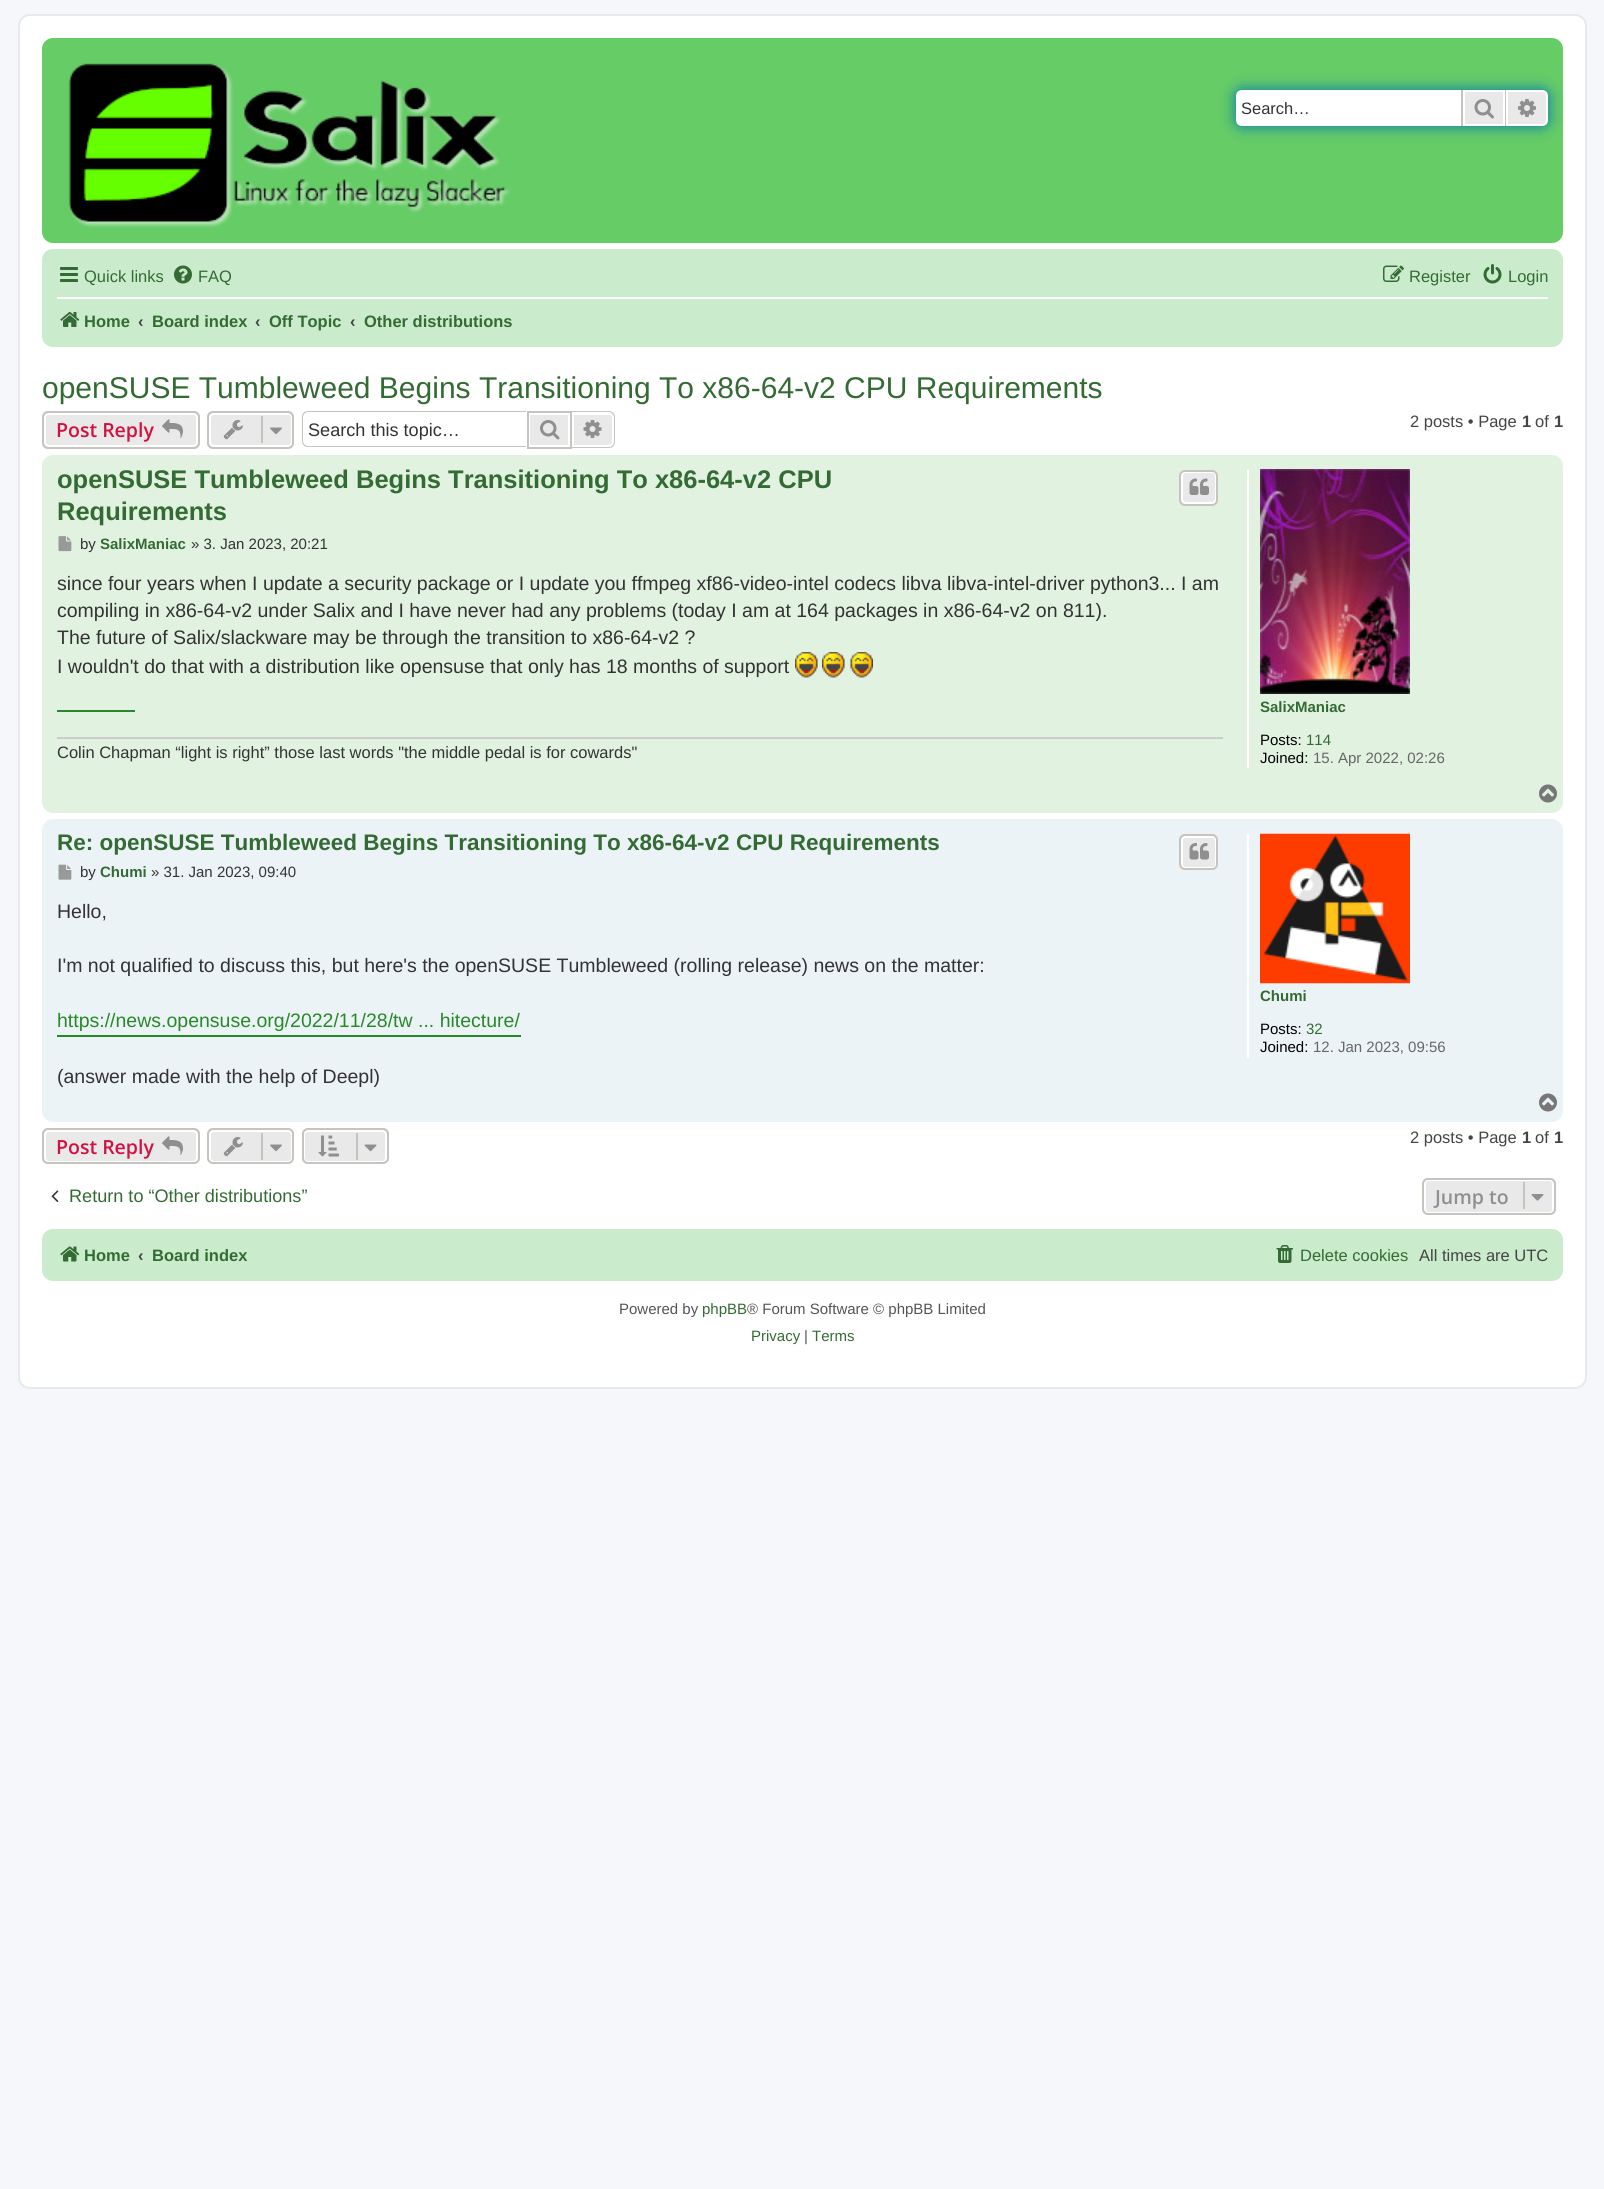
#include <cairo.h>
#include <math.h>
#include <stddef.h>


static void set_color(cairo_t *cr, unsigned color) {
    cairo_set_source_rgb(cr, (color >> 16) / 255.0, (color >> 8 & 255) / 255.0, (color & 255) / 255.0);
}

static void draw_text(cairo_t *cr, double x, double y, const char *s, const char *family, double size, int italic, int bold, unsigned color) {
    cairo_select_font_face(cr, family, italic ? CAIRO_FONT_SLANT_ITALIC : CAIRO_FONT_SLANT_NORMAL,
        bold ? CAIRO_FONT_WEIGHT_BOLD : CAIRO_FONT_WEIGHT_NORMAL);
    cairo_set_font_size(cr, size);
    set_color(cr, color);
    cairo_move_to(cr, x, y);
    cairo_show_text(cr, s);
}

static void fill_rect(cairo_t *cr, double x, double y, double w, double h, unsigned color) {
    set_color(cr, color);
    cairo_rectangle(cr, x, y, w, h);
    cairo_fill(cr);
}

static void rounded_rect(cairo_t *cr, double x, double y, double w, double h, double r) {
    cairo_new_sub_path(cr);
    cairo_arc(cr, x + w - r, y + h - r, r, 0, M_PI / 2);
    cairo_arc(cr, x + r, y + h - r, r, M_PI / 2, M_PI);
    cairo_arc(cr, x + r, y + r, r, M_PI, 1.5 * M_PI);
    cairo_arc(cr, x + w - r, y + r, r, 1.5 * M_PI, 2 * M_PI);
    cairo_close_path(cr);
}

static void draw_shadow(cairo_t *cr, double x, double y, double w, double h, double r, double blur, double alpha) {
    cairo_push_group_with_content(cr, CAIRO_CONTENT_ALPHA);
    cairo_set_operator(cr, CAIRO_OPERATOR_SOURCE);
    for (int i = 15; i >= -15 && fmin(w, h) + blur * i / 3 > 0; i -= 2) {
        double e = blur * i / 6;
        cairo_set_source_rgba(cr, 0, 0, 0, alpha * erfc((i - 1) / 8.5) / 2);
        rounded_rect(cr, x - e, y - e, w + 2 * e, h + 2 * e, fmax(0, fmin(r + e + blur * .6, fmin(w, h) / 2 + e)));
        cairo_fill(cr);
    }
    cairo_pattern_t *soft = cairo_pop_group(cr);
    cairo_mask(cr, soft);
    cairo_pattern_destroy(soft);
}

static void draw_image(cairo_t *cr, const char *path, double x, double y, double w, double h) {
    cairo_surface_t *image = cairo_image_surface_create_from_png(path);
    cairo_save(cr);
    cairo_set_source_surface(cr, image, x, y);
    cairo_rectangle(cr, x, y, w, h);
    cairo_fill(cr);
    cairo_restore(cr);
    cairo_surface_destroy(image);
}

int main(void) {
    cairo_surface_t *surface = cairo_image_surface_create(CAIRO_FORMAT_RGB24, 1604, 2189);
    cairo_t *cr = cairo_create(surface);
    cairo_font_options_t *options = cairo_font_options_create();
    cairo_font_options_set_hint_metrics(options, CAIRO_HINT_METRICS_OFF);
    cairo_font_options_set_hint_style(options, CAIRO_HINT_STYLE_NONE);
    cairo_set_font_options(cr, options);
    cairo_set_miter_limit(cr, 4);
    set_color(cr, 0xF5F7FA);
    cairo_paint(cr);
    set_color(cr, 0xFFFFFF);
    rounded_rect(cr, 19, 15, 1567, 1373, 11);
    cairo_fill_preserve(cr);
    set_color(cr, 0xE6E9ED);
    cairo_stroke(cr);
    set_color(cr, 0x66CC66);
    rounded_rect(cr, 42, 38, 1521, 205, 11);
    cairo_fill(cr);
    draw_image(cr, "assets/img1.png", 68, 63, 442, 165);
    set_color(cr, 0x0075B0);
    draw_shadow(cr, 1236, 90, 312, 36, 6, 7.5, 1);
    set_color(cr, 0xFFFFFF);
    cairo_new_path(cr);
    cairo_move_to(cr, 1242, 90);
    cairo_line_to(cr, 1461, 90);
    cairo_line_to(cr, 1461, 126);
    cairo_line_to(cr, 1242, 126);
    cairo_curve_to(cr, 1238.5, 126, 1236, 123.5, 1236, 120);
    cairo_line_to(cr, 1236, 96);
    cairo_curve_to(cr, 1236, 92.5, 1238.5, 90, 1242, 90);
    cairo_close_path(cr);
    cairo_fill(cr);
    draw_text(cr, 1241, 114, "Search…", "Liberation Sans", 16.5, 0, 0, 0x333333);
    set_color(cr, 0xE9E9E9);
    cairo_rectangle(cr, 1464, 91, 40, 34);
    cairo_fill_preserve(cr);
    set_color(cr, 0xFFFFFF);
    cairo_stroke(cr);
    fill_rect(cr, 1505, 90, 1, 36, 0xC7C3BF);
    fill_rect(cr, 1461, 90, 2, 36, 0xC7C3BF);
    draw_image(cr, "assets/img2.png", 1474, 99, 20, 20);
    set_color(cr, 0xE9E9E9);
    cairo_new_path(cr);
    cairo_move_to(cr, 1507, 91);
    cairo_line_to(cr, 1542, 91);
    cairo_curve_to(cr, 1545, 91, 1547, 93, 1547, 96);
    cairo_line_to(cr, 1547, 120);
    cairo_curve_to(cr, 1547, 123, 1545, 125, 1542, 125);
    cairo_line_to(cr, 1507, 125);
    cairo_close_path(cr);
    cairo_fill_preserve(cr);
    set_color(cr, 0xFFFFFF);
    cairo_stroke(cr);
    draw_image(cr, "assets/img3.png", 1518, 99, 18, 18);
    set_color(cr, 0xCAEBCC);
    rounded_rect(cr, 42, 249, 1521, 98, 11);
    cairo_fill(cr);
    draw_image(cr, "assets/img4.png", 60, 267, 18, 15);
    draw_text(cr, 84, 282, "Quick links", "Liberation Sans", 16.5, 0, 0, 0x346B34);
    draw_image(cr, "assets/img5.png", 174, 265, 18, 19);
    draw_text(cr, 198, 282, "FAQ", "Liberation Sans", 16.5, 0, 0, 0x346B34);
    draw_image(cr, "assets/img6.png", 1383, 265, 21, 17);
    draw_text(cr, 1409, 282, "Register", "Liberation Sans", 16.5, 0, 0, 0x346B34);
    draw_image(cr, "assets/img7.png", 1483, 264, 19, 20);
    draw_text(cr, 1508, 282, "Login", "Liberation Sans", 16.5, 0, 0, 0x346B34);
    fill_rect(cr, 57, 297, 1491, 2, 0xFFFFFF);
    draw_image(cr, "assets/img8.png", 60, 312, 20, 15);
    draw_text(cr, 84, 327, "Home", "Liberation Sans", 16.5, 0, 1, 0x346B34);
    draw_text(cr, 138, 327, "‹", "Liberation Sans", 16.5, 0, 1, 0x444444);
    draw_text(cr, 152, 327, "Board index", "Liberation Sans", 16.5, 0, 1, 0x346B34);
    draw_text(cr, 255, 327, "‹", "Liberation Sans", 16.5, 0, 1, 0x444444);
    draw_text(cr, 269, 327, "Off Topic", "Liberation Sans", 16.5, 0, 1, 0x346B34);
    draw_text(cr, 350, 327, "‹", "Liberation Sans", 16.5, 0, 1, 0x444444);
    draw_text(cr, 364, 327, "Other distributions", "Liberation Sans", 16.5, 0, 1, 0x346B34);
    draw_text(cr, 42, 398, "openSUSE Tumbleweed Begins Transitioning To x86-64-v2 CPU Requirements", "Liberation Sans", 30, 0, 0, 0x346B34);
    set_color(cr, 0xE9E9E9);
    rounded_rect(cr, 42, 411, 158, 38, 6);
    cairo_fill(cr);
    rounded_rect(cr, 45, 414, 152, 32, 4);
    set_color(cr, 0xFFFFFF);
    cairo_stroke(cr);
    rounded_rect(cr, 43, 412, 156, 36, 5);
    set_color(cr, 0xC7C3BF);
    cairo_stroke(cr);
    draw_text(cr, 56, 437, "Post Reply", "Open Sans SemiBold", 19.5, 0, 0, 0xD31141);
    draw_image(cr, "assets/img9.png", 162, 419, 21, 19);
    set_color(cr, 0xE9E9E9);
    rounded_rect(cr, 207, 411, 87, 38, 6);
    cairo_fill(cr);
    rounded_rect(cr, 210, 414, 82, 32, 4);
    set_color(cr, 0xFFFFFF);
    cairo_stroke(cr);
    rounded_rect(cr, 208, 412, 85, 36, 5);
    set_color(cr, 0xC7C3BF);
    cairo_stroke(cr);
    draw_image(cr, "assets/img10.png", 223, 420, 20, 20);
    fill_rect(cr, 261, 416, 2, 27, 0xC7C3BF);
    draw_image(cr, "assets/img11.png", 270, 427, 12, 8);
    cairo_set_fill_rule(cr, CAIRO_FILL_RULE_EVEN_ODD);
    cairo_new_path(cr);
    cairo_move_to(cr, 308, 411);
    cairo_line_to(cr, 526, 411);
    cairo_line_to(cr, 526, 447);
    cairo_line_to(cr, 308, 447);
    cairo_curve_to(cr, 304, 447, 302, 444, 302, 441);
    cairo_line_to(cr, 302, 417);
    cairo_curve_to(cr, 302, 414, 304, 411, 308, 411);
    cairo_close_path(cr);
    cairo_move_to(cr, 308, 412);
    cairo_line_to(cr, 526, 412);
    cairo_line_to(cr, 526, 446);
    cairo_line_to(cr, 308, 446);
    cairo_curve_to(cr, 305, 446, 303, 443, 303, 441);
    cairo_line_to(cr, 303, 417);
    cairo_curve_to(cr, 303, 415, 305, 412, 308, 412);
    cairo_close_path(cr);
    cairo_fill(cr);
    draw_text(cr, 308, 436, "Search this topic…", "Liberation Sans", 18.1, 0, 0, 0x333333);
    fill_rect(cr, 530, 415, 38, 30, 0xE9E9E9);
    cairo_rectangle(cr, 528, 412, 43, 36);
    set_color(cr, 0xC7C3BF);
    cairo_stroke(cr);
    draw_image(cr, "assets/img12.png", 540, 420, 20, 20);
    set_color(cr, 0xE9E9E9);
    cairo_new_path(cr);
    cairo_move_to(cr, 573, 414);
    cairo_line_to(cr, 609, 414);
    cairo_curve_to(cr, 611, 414, 613, 416, 613, 418);
    cairo_line_to(cr, 613, 442);
    cairo_curve_to(cr, 613, 444, 611, 446, 609, 446);
    cairo_line_to(cr, 573, 446);
    cairo_close_path(cr);
    cairo_fill_preserve(cr);
    set_color(cr, 0xFFFFFF);
    cairo_stroke(cr);
    set_color(cr, 0xC7C3BF);
    cairo_new_path(cr);
    cairo_move_to(cr, 572, 411);
    cairo_line_to(cr, 609, 411);
    cairo_curve_to(cr, 612, 411, 615, 414, 615, 417);
    cairo_line_to(cr, 615, 442);
    cairo_curve_to(cr, 615, 446, 612, 448, 609, 448);
    cairo_line_to(cr, 572, 448);
    cairo_close_path(cr);
    cairo_move_to(cr, 572, 412);
    cairo_line_to(cr, 609, 412);
    cairo_curve_to(cr, 611, 412, 614, 415, 614, 417);
    cairo_line_to(cr, 614, 442);
    cairo_curve_to(cr, 614, 445, 611, 447, 609, 447);
    cairo_line_to(cr, 572, 447);
    cairo_close_path(cr);
    cairo_fill(cr);
    draw_image(cr, "assets/img13.png", 583, 420, 19, 18);
    draw_text(cr, 1410, 427, "2 posts • Page", "Liberation Sans", 16.5, 0, 0, 0x444444);
    draw_text(cr, 1522, 427, "1", "Liberation Sans", 16.5, 0, 1, 0x444444);
    draw_text(cr, 1535, 427, "of", "Liberation Sans", 16.5, 0, 0, 0x444444);
    draw_text(cr, 1554, 427, "1", "Liberation Sans", 16.5, 0, 1, 0x444444);
    set_color(cr, 0xE1F2E1);
    rounded_rect(cr, 42, 455, 1521, 358, 11);
    cairo_fill(cr);
    draw_text(cr, 57, 488, "openSUSE Tumbleweed Begins Transitioning To x86-64-v2 CPU", "Liberation Sans", 25.5, 0, 1, 0x346B34);
    draw_text(cr, 57, 520, "Requirements", "Liberation Sans", 25.5, 0, 1, 0x346B34);
    set_color(cr, 0xE9E9E9);
    rounded_rect(cr, 1179, 470, 39, 36, 6);
    cairo_fill(cr);
    rounded_rect(cr, 1182, 472, 34, 31, 4);
    set_color(cr, 0xFFFFFF);
    cairo_stroke(cr);
    rounded_rect(cr, 1180, 471, 37, 34, 5);
    set_color(cr, 0xC7C3BF);
    cairo_stroke(cr);
    draw_image(cr, "assets/img14.png", 1189, 478, 20, 17);
    draw_image(cr, "assets/img15.png", 58, 536, 14, 16);
    draw_text(cr, 80, 549, "by", "Liberation Sans", 15, 0, 0, 0x333333);
    draw_text(cr, 100, 549, "SalixManiac", "Liberation Sans", 15, 0, 1, 0x346B34);
    draw_text(cr, 191, 549, "» 3. Jan 2023, 20:21", "Liberation Sans", 15, 0, 0, 0x333333);
    draw_text(cr, 57, 590, "since four years when I update a security package or I update you ffmpeg xf86-video-intel codecs libva libva-intel-driver python3... I am", "Liberation Sans", 19.5, 0, 0, 0x333333);
    draw_text(cr, 57, 617, "compiling in x86-64-v2 under Salix and I have never had any problems (today I am at 164 packages in x86-64-v2 on 811).", "Liberation Sans", 19.5, 0, 0, 0x333333);
    draw_text(cr, 57, 644, "The future of Salix/slackware may be through the transition to x86-64-v2 ?", "Liberation Sans", 19.5, 0, 0, 0x333333);
    draw_text(cr, 57, 673, "I wouldn't do that with a distribution like opensuse that only has 18 months of support", "Liberation Sans", 19.5, 0, 0, 0x333333);
    draw_image(cr, "assets/img16.png", 795, 652, 23, 26);
    draw_image(cr, "assets/img16.png", 822, 652, 23, 26);
    draw_image(cr, "assets/img17.png", 850, 652, 23, 26);
    fill_rect(cr, 57, 710, 78, 2, 0x288928);
    fill_rect(cr, 57, 737, 1166, 2, 0xCCCCCC);
    draw_text(cr, 57, 758, "Colin Chapman “light is right” those last words \"the middle pedal is for cowards\"", "Liberation Sans", 16.5, 0, 0, 0x333333);
    fill_rect(cr, 1247, 470, 2, 298, 0xFFFFFF);
    draw_image(cr, "assets/img18.png", 1260, 469, 150, 225);
    draw_text(cr, 1260, 712, "SalixManiac", "Liberation Sans", 15, 0, 1, 0x346B34);
    draw_text(cr, 1260, 745, "Posts:", "Liberation Sans", 15, 0, 0, 0x000000);
    draw_text(cr, 1306, 745, "114", "Liberation Sans", 15, 0, 0, 0x346B34);
    draw_text(cr, 1260, 763, "Joined:", "Liberation Sans", 15, 0, 0, 0x000000);
    draw_text(cr, 1313, 763, "15. Apr 2022, 02:26", "Liberation Sans", 15, 0, 0, 0x666666);
    draw_image(cr, "assets/img19.png", 1539, 784, 18, 19);
    set_color(cr, 0xECF3F7);
    rounded_rect(cr, 42, 819, 1521, 303, 11);
    cairo_fill(cr);
    draw_text(cr, 57, 850, "Re: openSUSE Tumbleweed Begins Transitioning To x86-64-v2 CPU Requirements", "Liberation Sans", 22.5, 0, 1, 0x346B34);
    set_color(cr, 0xE9E9E9);
    rounded_rect(cr, 1179, 834, 39, 36, 6);
    cairo_fill(cr);
    rounded_rect(cr, 1182, 837, 34, 31, 4);
    set_color(cr, 0xFFFFFF);
    cairo_stroke(cr);
    rounded_rect(cr, 1180, 835, 37, 34, 5);
    set_color(cr, 0xC7C3BF);
    cairo_stroke(cr);
    draw_image(cr, "assets/img20.png", 1189, 843, 20, 17);
    draw_image(cr, "assets/img21.png", 58, 864, 14, 16);
    draw_text(cr, 80, 877, "by", "Liberation Sans", 15, 0, 0, 0x333333);
    draw_text(cr, 100, 877, "Chumi", "Liberation Sans", 15, 0, 1, 0x346B34);
    draw_text(cr, 151, 877, "» 31. Jan 2023, 09:40", "Liberation Sans", 15, 0, 0, 0x333333);
    draw_text(cr, 57, 918, "Hello,", "Liberation Sans", 19.5, 0, 0, 0x333333);
    draw_text(cr, 57, 972, "I'm not qualified to discuss this, but here's the openSUSE Tumbleweed (rolling release) news on the matter:", "Liberation Sans", 19.5, 0, 0, 0x333333);
    fill_rect(cr, 57, 1035, 464, 2, 0x288928);
    draw_text(cr, 57, 1027, "https://news.opensuse.org/2022/11/28/tw ... hitecture/", "Liberation Sans", 19.5, 0, 0, 0x288928);
    draw_text(cr, 57, 1083, "(answer made with the help of Deepl)", "Liberation Sans", 19.5, 0, 0, 0x333333);
    fill_rect(cr, 1247, 834, 2, 224, 0xFFFFFF);
    draw_image(cr, "assets/img22.png", 1260, 833, 150, 151);
    draw_text(cr, 1260, 1001, "Chumi", "Liberation Sans", 15, 0, 1, 0x346B34);
    draw_text(cr, 1260, 1034, "Posts:", "Liberation Sans", 15, 0, 0, 0x000000);
    draw_text(cr, 1306, 1034, "32", "Liberation Sans", 15, 0, 0, 0x346B34);
    draw_text(cr, 1260, 1052, "Joined:", "Liberation Sans", 15, 0, 0, 0x000000);
    draw_text(cr, 1313, 1052, "12. Jan 2023, 09:56", "Liberation Sans", 15, 0, 0, 0x666666);
    draw_image(cr, "assets/img23.png", 1539, 1093, 18, 19);
    set_color(cr, 0xE9E9E9);
    rounded_rect(cr, 42, 1128, 158, 36, 6);
    cairo_fill(cr);
    rounded_rect(cr, 45, 1131, 152, 31, 4);
    set_color(cr, 0xFFFFFF);
    cairo_stroke(cr);
    rounded_rect(cr, 43, 1129, 156, 34, 5);
    set_color(cr, 0xC7C3BF);
    cairo_stroke(cr);
    draw_text(cr, 56, 1154, "Post Reply", "Open Sans SemiBold", 19.5, 0, 0, 0xD31141);
    draw_image(cr, "assets/img9.png", 162, 1136, 21, 19);
    set_color(cr, 0xE9E9E9);
    rounded_rect(cr, 207, 1128, 87, 36, 6);
    cairo_fill(cr);
    rounded_rect(cr, 210, 1131, 82, 31, 4);
    set_color(cr, 0xFFFFFF);
    cairo_stroke(cr);
    rounded_rect(cr, 208, 1129, 85, 34, 5);
    set_color(cr, 0xC7C3BF);
    cairo_stroke(cr);
    draw_image(cr, "assets/img10.png", 223, 1137, 20, 20);
    fill_rect(cr, 261, 1133, 2, 27, 0xC7C3BF);
    draw_image(cr, "assets/img11.png", 270, 1144, 12, 8);
    set_color(cr, 0xE9E9E9);
    rounded_rect(cr, 302, 1128, 87, 36, 6);
    cairo_fill(cr);
    rounded_rect(cr, 304, 1131, 82, 31, 4);
    set_color(cr, 0xFFFFFF);
    cairo_stroke(cr);
    rounded_rect(cr, 303, 1129, 85, 34, 5);
    set_color(cr, 0xC7C3BF);
    cairo_stroke(cr);
    draw_image(cr, "assets/img24.png", 318, 1135, 21, 22);
    fill_rect(cr, 356, 1133, 2, 27, 0xC7C3BF);
    draw_image(cr, "assets/img25.png", 364, 1144, 13, 8);
    draw_text(cr, 1410, 1143, "2 posts • Page", "Liberation Sans", 16.5, 0, 0, 0x444444);
    draw_text(cr, 1522, 1143, "1", "Liberation Sans", 16.5, 0, 1, 0x444444);
    draw_text(cr, 1535, 1143, "of", "Liberation Sans", 16.5, 0, 0, 0x444444);
    draw_text(cr, 1554, 1143, "1", "Liberation Sans", 16.5, 0, 1, 0x444444);
    draw_image(cr, "assets/img26.png", 51, 1190, 8, 12);
    draw_text(cr, 69, 1202, "Return to “Other distributions”", "Liberation Sans", 18.1, 0, 0, 0x346B34);
    set_color(cr, 0xE9E9E9);
    rounded_rect(cr, 1422, 1178, 134, 37, 6);
    cairo_fill(cr);
    rounded_rect(cr, 1425, 1180, 128, 33, 4);
    set_color(cr, 0xFFFFFF);
    cairo_stroke(cr);
    rounded_rect(cr, 1423, 1179, 132, 35, 5);
    set_color(cr, 0xC7C3BF);
    cairo_stroke(cr);
    draw_text(cr, 1435, 1204, "Jump to", "Open Sans SemiBold", 19.5, 0, 0, 0x8F8F8F);
    fill_rect(cr, 1523, 1182, 2, 27, 0xC7C3BF);
    draw_image(cr, "assets/img27.png", 1531, 1194, 13, 7);
    set_color(cr, 0xCAEBCC);
    rounded_rect(cr, 42, 1229, 1521, 52, 11);
    cairo_fill(cr);
    draw_image(cr, "assets/img28.png", 60, 1246, 20, 16);
    draw_text(cr, 84, 1261, "Home", "Liberation Sans", 16.5, 0, 1, 0x346B34);
    draw_text(cr, 138, 1261, "‹", "Liberation Sans", 16.5, 0, 1, 0x444444);
    draw_text(cr, 152, 1261, "Board index", "Liberation Sans", 16.5, 0, 1, 0x346B34);
    draw_image(cr, "assets/img29.png", 1276, 1245, 17, 18);
    draw_text(cr, 1300, 1261, "Delete cookies", "Liberation Sans", 16.5, 0, 0, 0x346B34);
    draw_text(cr, 1419, 1261, "All times are UTC", "Liberation Sans", 16.5, 0, 0, 0x444444);
    draw_text(cr, 619, 1314, "Powered by", "Liberation Sans", 15, 0, 0, 0x555555);
    draw_text(cr, 702, 1314, "phpBB", "Liberation Sans", 15, 0, 0, 0x346B34);
    draw_text(cr, 747, 1314, "® Forum Software © phpBB Limited", "Liberation Sans", 15, 0, 0, 0x555555);
    draw_text(cr, 751, 1341, "Privacy", "Liberation Sans", 15, 0, 0, 0x346B34);
    draw_text(cr, 804, 1341, "|", "Liberation Sans", 15, 0, 0, 0x555555);
    draw_text(cr, 812, 1341, "Terms", "Liberation Sans", 15, 0, 0, 0x346B34);
    cairo_surface_write_to_png(surface, "output.png");
    cairo_font_options_destroy(options);
    cairo_destroy(cr);
    cairo_surface_destroy(surface);
    return 0;
}
